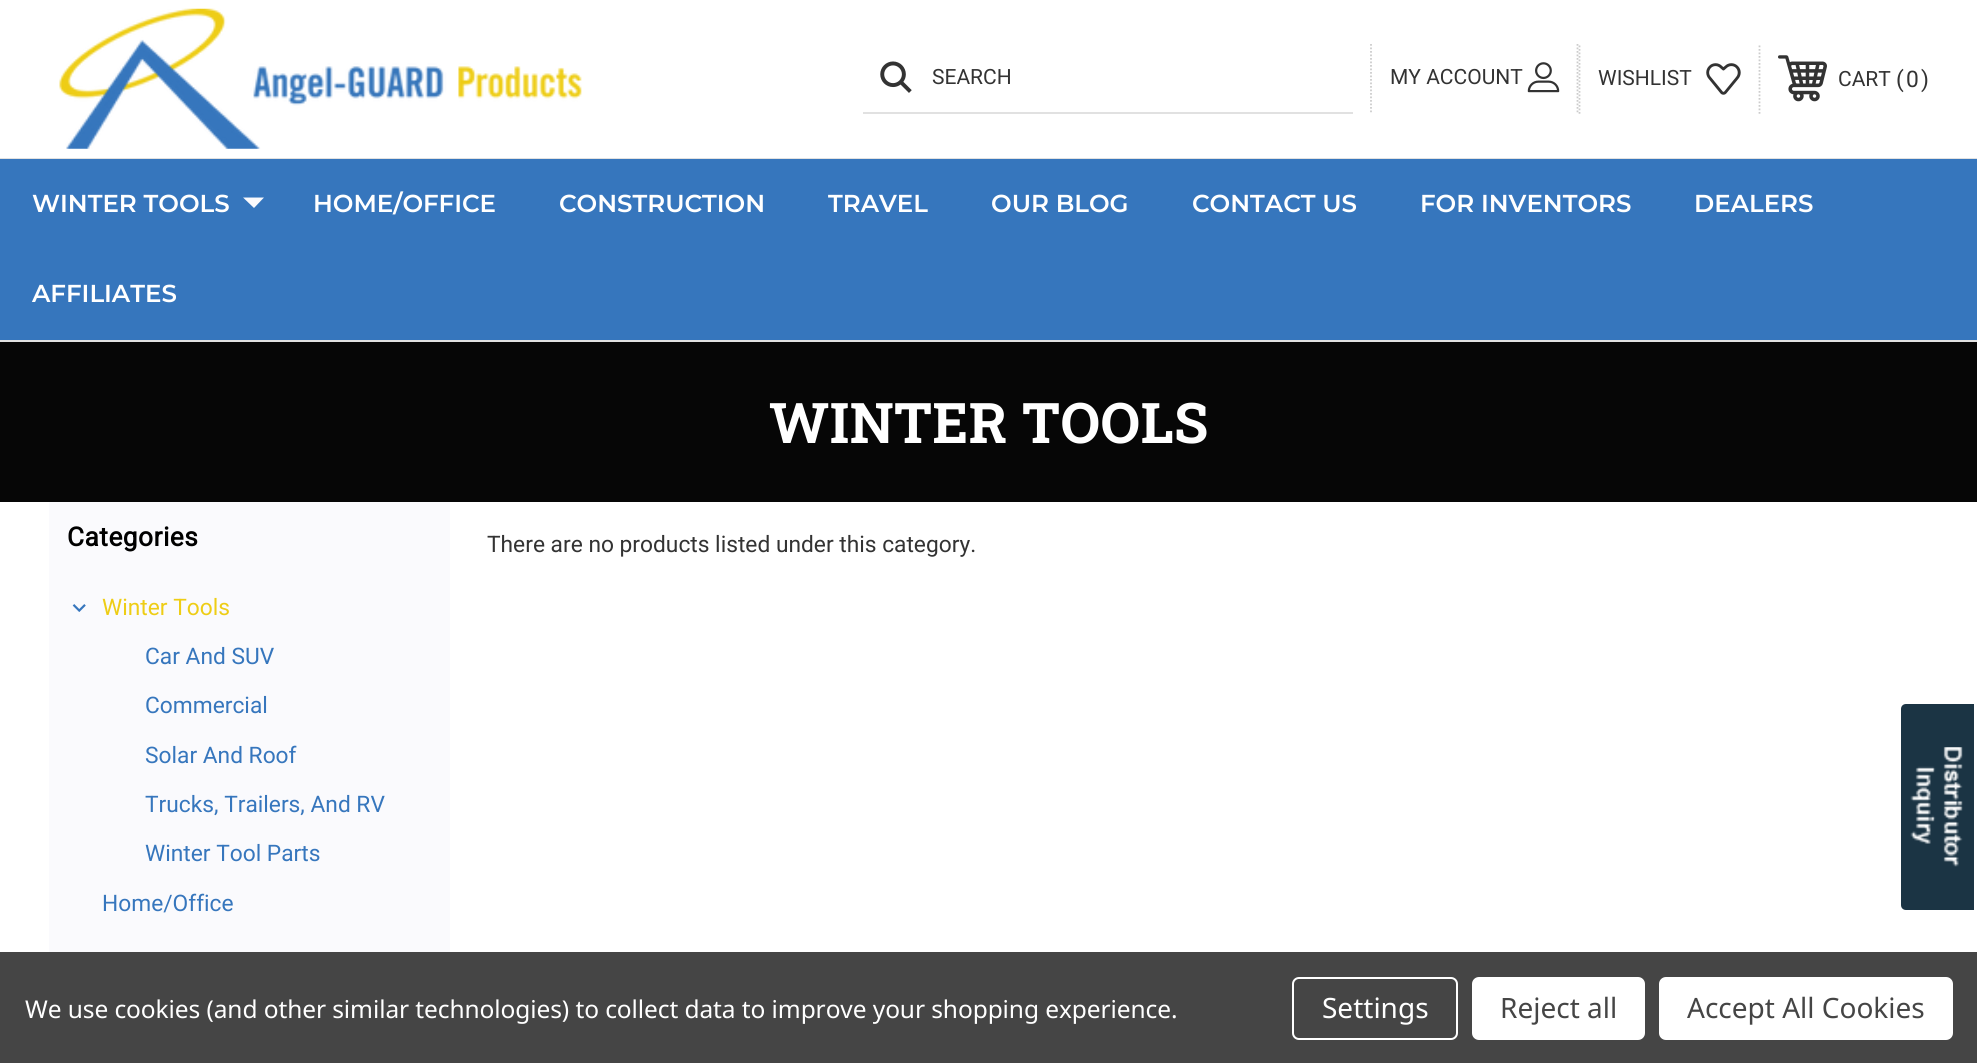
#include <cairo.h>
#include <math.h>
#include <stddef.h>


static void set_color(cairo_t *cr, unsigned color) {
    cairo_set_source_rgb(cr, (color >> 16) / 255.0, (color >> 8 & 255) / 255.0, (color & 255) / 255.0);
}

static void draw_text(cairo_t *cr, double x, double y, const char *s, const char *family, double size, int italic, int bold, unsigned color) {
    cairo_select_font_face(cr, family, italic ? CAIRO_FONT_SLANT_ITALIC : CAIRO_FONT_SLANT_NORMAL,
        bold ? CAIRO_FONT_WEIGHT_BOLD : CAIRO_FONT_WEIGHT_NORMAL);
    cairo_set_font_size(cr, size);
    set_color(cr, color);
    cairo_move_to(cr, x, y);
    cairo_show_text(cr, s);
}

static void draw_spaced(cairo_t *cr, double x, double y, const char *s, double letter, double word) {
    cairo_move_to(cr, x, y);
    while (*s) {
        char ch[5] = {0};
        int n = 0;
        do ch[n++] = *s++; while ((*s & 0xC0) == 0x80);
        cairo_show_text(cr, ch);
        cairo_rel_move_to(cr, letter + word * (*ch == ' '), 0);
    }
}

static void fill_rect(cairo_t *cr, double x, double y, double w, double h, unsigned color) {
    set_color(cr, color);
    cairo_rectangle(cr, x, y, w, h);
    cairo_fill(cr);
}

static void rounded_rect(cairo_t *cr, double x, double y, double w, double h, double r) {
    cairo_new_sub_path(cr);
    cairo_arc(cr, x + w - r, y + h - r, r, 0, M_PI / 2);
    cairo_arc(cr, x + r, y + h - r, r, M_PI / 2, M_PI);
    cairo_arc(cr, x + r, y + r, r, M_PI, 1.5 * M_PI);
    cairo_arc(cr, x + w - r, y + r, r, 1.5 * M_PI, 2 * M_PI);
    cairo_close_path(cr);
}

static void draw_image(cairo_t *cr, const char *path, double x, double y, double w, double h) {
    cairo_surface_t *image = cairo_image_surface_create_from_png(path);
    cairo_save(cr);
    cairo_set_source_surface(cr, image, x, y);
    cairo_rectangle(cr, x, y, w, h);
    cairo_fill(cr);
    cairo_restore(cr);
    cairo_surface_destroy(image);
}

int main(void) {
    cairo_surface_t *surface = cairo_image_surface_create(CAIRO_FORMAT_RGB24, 1977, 1063);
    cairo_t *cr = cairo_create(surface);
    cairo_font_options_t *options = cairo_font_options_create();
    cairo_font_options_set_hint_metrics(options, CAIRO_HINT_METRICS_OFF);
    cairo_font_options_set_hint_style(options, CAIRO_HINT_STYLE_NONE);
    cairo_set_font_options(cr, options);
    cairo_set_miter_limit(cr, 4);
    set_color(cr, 0xFFFFFF);
    cairo_paint(cr);
    fill_rect(cr, 0, 340, 1977, 2, 0xE1E1E1);
    draw_image(cr, "assets/img1.png", 59, 8, 523, 141);
    fill_rect(cr, 863, 112, 490, 2, 0xE1E1E1);
    draw_image(cr, "assets/img2.png", 880, 61, 32, 32);
    draw_text(cr, 932, 84, "SEARCH", "Roboto", 21, 0, 0, 0x333333);
    cairo_new_path(cr);
    cairo_move_to(cr, 1577.5, 44);
    cairo_line_to(cr, 1577.5, 114);
    set_color(cr, 0xCCCCCC);
    cairo_set_line_width(cr, 1.8);
    cairo_set_dash(cr, (double[]){1.75, 1.75}, 2, 0);
    cairo_stroke(cr);
    cairo_new_path(cr);
    cairo_move_to(cr, 1371, 44);
    cairo_line_to(cr, 1371, 114);
    cairo_stroke(cr);
    draw_text(cr, 1390, 84, "MY ACCOUNT", "Roboto", 21, 0, 0, 0x333333);
    draw_image(cr, "assets/img3.png", 1527, 62, 33, 31);
    cairo_new_path(cr);
    cairo_move_to(cr, 1759.5, 45.5);
    cairo_line_to(cr, 1759.5, 114);
    set_color(cr, 0xCCCCCC);
    cairo_stroke(cr);
    cairo_new_path(cr);
    cairo_move_to(cr, 1579.5, 45.5);
    cairo_line_to(cr, 1579.5, 114);
    cairo_stroke(cr);
    draw_text(cr, 1598, 85, "WISHLIST", "Roboto", 21, 0, 0, 0x333333);
    draw_image(cr, "assets/img4.png", 1706, 63, 35, 32);
    draw_image(cr, "assets/img5.png", 1778, 55, 49, 47);
    draw_text(cr, 1838, 86, "CART", "Roboto", 21, 0, 0, 0x333333);
    draw_text(cr, 1896, 87, "(", "Roboto", 22.75, 0, 0, 0x333333);
    draw_text(cr, 1906, 87, "0", "Roboto", 22.75, 0, 0, 0x333333);
    draw_text(cr, 1921, 87, ")", "Roboto", 22.75, 0, 0, 0x333333);
    fill_rect(cr, 0, 158, 1977, 1, 0xE1E1E1);
    fill_rect(cr, 0, 159, 1977, 181, 0x3676BD);
    draw_text(cr, 32, 212, "WINTER TOOLS", "Montserrat SemiBold", 24.5, 0, 0, 0xFFFFFF);
    set_color(cr, 0xFAFAFD);
    cairo_new_path(cr);
    cairo_move_to(cr, 243, 197.5);
    cairo_line_to(cr, 254, 208);
    cairo_line_to(cr, 264, 197.5);
    cairo_close_path(cr);
    cairo_fill(cr);
    draw_text(cr, 313, 212, "HOME/OFFICE", "Montserrat SemiBold", 24.5, 0, 0, 0xFFFFFF);
    draw_text(cr, 559, 212, "CONSTRUCTION", "Montserrat SemiBold", 24.5, 0, 0, 0xFFFFFF);
    draw_text(cr, 828, 212, "TRAVEL", "Montserrat SemiBold", 24.5, 0, 0, 0xFFFFFF);
    draw_text(cr, 991, 212, "OUR BLOG", "Montserrat SemiBold", 24.5, 0, 0, 0xFFFFFF);
    draw_text(cr, 1192, 212, "CONTACT US", "Montserrat SemiBold", 24.5, 0, 0, 0xFFFFFF);
    draw_text(cr, 1420, 212, "FOR INVENTORS", "Montserrat SemiBold", 24.5, 0, 0, 0xFFFFFF);
    draw_text(cr, 1694, 212, "DEALERS", "Montserrat SemiBold", 24.5, 0, 0, 0xFFFFFF);
    draw_text(cr, 32, 302, "AFFILIATES", "Montserrat SemiBold", 24.5, 0, 0, 0xFFFFFF);
    fill_rect(cr, 0, 342, 1977, 160, 0x060606);
    cairo_select_font_face(cr, "Roboto Slab", CAIRO_FONT_SLANT_NORMAL, CAIRO_FONT_WEIGHT_BOLD);
    cairo_set_font_size(cr, 56);
    set_color(cr, 0xFFFFFF);
    draw_spaced(cr, 769, 443, "WINTER TOOLS", 0.5, 0);
    fill_rect(cr, 49, 502, 401, 450, 0xFAFAFD);
    cairo_select_font_face(cr, "Roboto", CAIRO_FONT_SLANT_NORMAL, CAIRO_FONT_WEIGHT_BOLD);
    cairo_set_font_size(cr, 26.25);
    set_color(cr, 0x000000);
    draw_spaced(cr, 67, 546, "Categories", 0.5, 0);
    draw_image(cr, "assets/img6.png", 72, 604, 14, 8);
    draw_text(cr, 102, 615, "Winter Tools", "Roboto", 22.75, 0, 0, 0xEECD15);
    draw_text(cr, 145, 664, "Car And SUV", "Roboto", 22.75, 0, 0, 0x3676BD);
    draw_text(cr, 145, 713, "Commercial", "Roboto", 22.75, 0, 0, 0x3676BD);
    draw_text(cr, 145, 763, "Solar And Roof", "Roboto", 22.75, 0, 0, 0x3676BD);
    draw_text(cr, 145, 812, "Trucks, Trailers, And RV", "Roboto", 22.75, 0, 0, 0x3676BD);
    draw_text(cr, 145, 861, "Winter Tool Parts", "Roboto", 22.75, 0, 0, 0x3676BD);
    draw_text(cr, 102, 911, "Home/Office", "Roboto", 22.75, 0, 0, 0x3676BD);
    draw_text(cr, 487, 552, "There are no products listed under this category.", "Roboto", 22.75, 0, 0, 0x333333);
    set_color(cr, 0x1B3444);
    cairo_new_path(cr);
    cairo_move_to(cr, 1906, 702);
    cairo_line_to(cr, 1976, 702);
    cairo_line_to(cr, 1976, 912);
    cairo_line_to(cr, 1906, 912);
    cairo_curve_to(cr, 1902, 912, 1899, 909, 1899, 905);
    cairo_line_to(cr, 1899, 709);
    cairo_curve_to(cr, 1899, 705, 1902, 702, 1906, 702);
    cairo_close_path(cr);
    cairo_fill_preserve(cr);
    set_color(cr, 0xFFFFFF);
    cairo_set_line_width(cr, 4);
    cairo_set_dash(cr, NULL, 0, 0);
    cairo_stroke(cr);
    draw_image(cr, "assets/img7.png", 1910, 747, 53, 120);
    fill_rect(cr, 0, 952, 1977, 111, 0x454545);
    cairo_select_font_face(cr, "Noto Sans", CAIRO_FONT_SLANT_NORMAL, CAIRO_FONT_WEIGHT_NORMAL);
    cairo_set_font_size(cr, 24.5);
    set_color(cr, 0xFFFFFF);
    draw_spaced(cr, 25, 1018, "We use cookies (and other similar technologies) to collect data to improve your shopping experience.", -0.09, 0);
    rounded_rect(cr, 1293, 978, 164, 61, 6);
    cairo_set_line_width(cr, 2);
    cairo_stroke(cr);
    draw_text(cr, 1322, 1018, "Settings", "Noto Sans", 28, 0, 0, 0xFFFFFF);
    rounded_rect(cr, 1472, 977, 173, 63, 7);
    cairo_fill(cr);
    draw_text(cr, 1500, 1018, "Reject all", "Noto Sans", 28, 0, 0, 0x454545);
    set_color(cr, 0xFFFFFF);
    rounded_rect(cr, 1659, 977, 294, 63, 7);
    cairo_fill(cr);
    draw_text(cr, 1687, 1018, "Accept All Cookies", "Noto Sans", 28, 0, 0, 0x454545);
    cairo_surface_write_to_png(surface, "output.png");
    cairo_font_options_destroy(options);
    cairo_destroy(cr);
    cairo_surface_destroy(surface);
    return 0;
}
